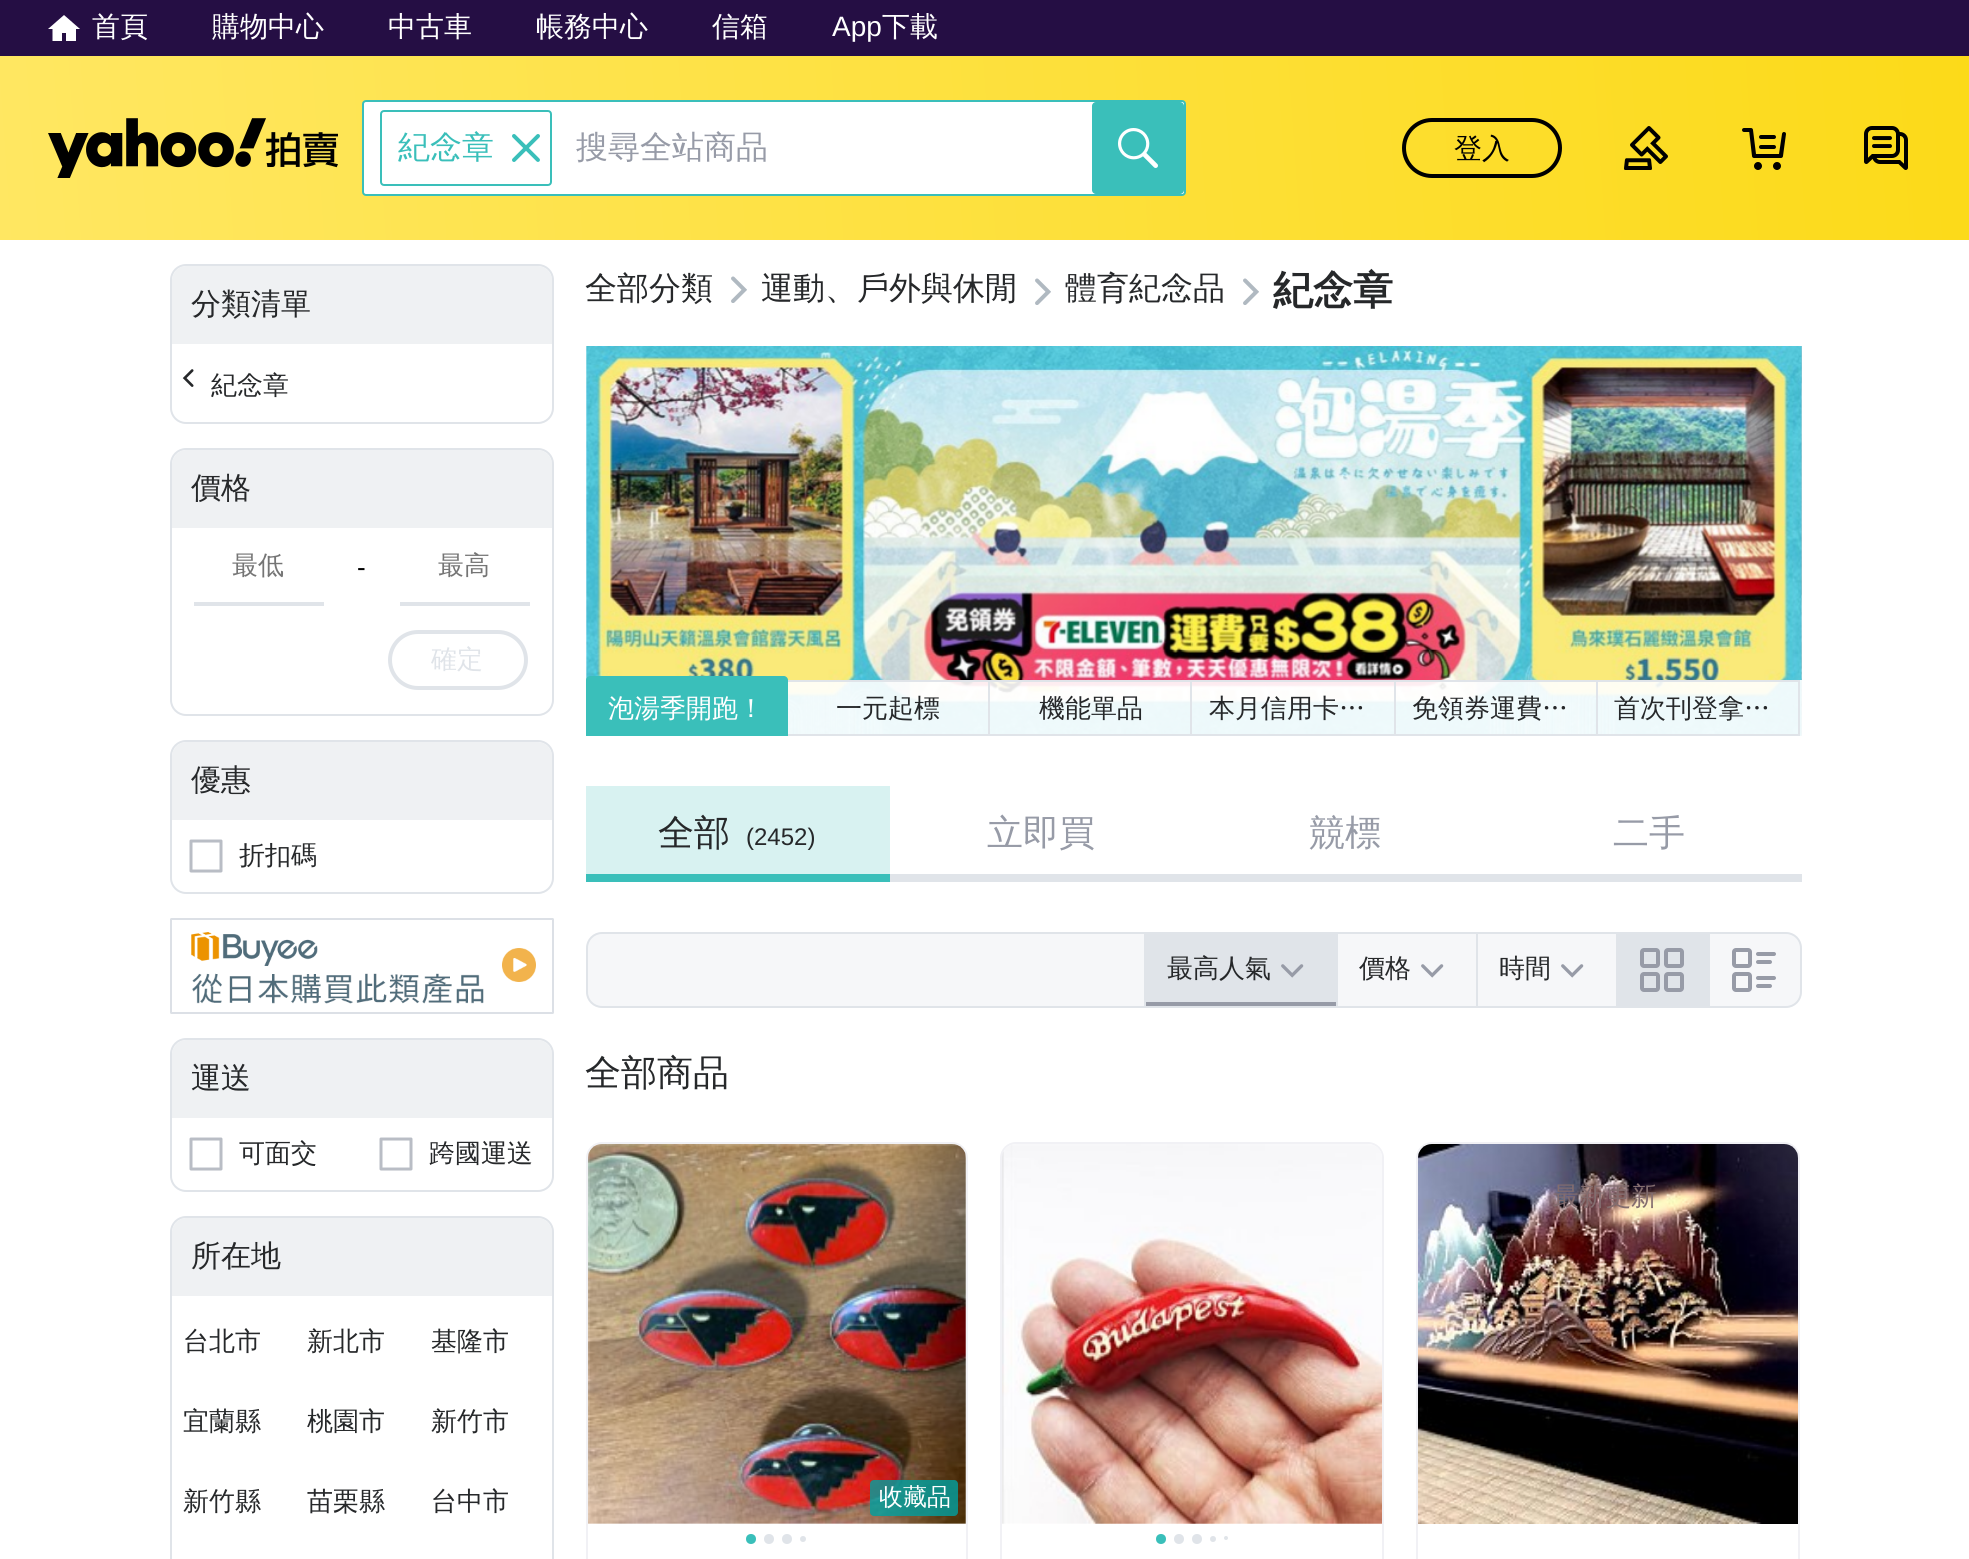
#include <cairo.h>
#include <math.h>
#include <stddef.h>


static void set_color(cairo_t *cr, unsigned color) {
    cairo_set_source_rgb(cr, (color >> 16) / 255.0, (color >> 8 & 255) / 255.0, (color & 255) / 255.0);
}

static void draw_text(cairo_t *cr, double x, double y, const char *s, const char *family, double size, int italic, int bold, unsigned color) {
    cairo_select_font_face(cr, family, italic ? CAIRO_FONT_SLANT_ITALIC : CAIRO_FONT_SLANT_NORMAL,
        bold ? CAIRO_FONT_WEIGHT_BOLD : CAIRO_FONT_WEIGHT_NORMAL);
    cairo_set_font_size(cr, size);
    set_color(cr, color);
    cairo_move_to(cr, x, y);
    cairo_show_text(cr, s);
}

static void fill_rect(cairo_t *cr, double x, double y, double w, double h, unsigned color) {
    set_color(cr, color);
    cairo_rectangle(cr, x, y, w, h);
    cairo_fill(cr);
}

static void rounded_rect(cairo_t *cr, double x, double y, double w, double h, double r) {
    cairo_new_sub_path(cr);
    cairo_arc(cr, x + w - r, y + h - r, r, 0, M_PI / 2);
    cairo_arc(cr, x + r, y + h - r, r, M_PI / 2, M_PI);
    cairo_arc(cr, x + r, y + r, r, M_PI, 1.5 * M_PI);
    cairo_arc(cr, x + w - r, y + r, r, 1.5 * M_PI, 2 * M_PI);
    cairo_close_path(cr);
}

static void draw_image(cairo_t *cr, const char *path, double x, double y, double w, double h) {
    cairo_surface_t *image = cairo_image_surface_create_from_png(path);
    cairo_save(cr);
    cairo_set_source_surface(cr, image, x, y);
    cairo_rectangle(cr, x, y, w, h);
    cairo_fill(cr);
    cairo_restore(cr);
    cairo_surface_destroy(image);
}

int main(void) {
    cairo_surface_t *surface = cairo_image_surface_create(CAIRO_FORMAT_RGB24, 1969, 1559);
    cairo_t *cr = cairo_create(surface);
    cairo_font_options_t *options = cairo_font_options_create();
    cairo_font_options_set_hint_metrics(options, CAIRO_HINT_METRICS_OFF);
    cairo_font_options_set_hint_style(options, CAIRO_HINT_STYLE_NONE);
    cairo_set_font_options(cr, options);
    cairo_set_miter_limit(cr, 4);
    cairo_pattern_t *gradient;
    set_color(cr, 0xFFFFFF);
    cairo_paint(cr);
    fill_rect(cr, 586, 786, 304, 88, 0xD8F2F1);
    fill_rect(cr, 0, 0, 1969, 56, 0x250E44);
    set_color(cr, 0xFFFFFF);
    cairo_set_fill_rule(cr, CAIRO_FILL_RULE_EVEN_ODD);
    cairo_new_path(cr);
    cairo_move_to(cr, 64, 15);
    cairo_line_to(cr, 48, 29);
    cairo_line_to(cr, 52.5, 29);
    cairo_line_to(cr, 52.5, 41);
    cairo_line_to(cr, 62, 41);
    cairo_line_to(cr, 62, 33);
    cairo_line_to(cr, 66, 33);
    cairo_line_to(cr, 66, 41);
    cairo_line_to(cr, 76, 41);
    cairo_line_to(cr, 76, 29);
    cairo_line_to(cr, 80, 29);
    cairo_fill(cr);
    draw_text(cr, 92, 36, "首頁", "WenQuanYi Zen Hei Medium", 28, 0, 0, 0xFFFFFF);
    draw_text(cr, 212, 36, "購物中心", "WenQuanYi Zen Hei Medium", 28, 0, 0, 0xFFFFFF);
    draw_text(cr, 388, 36, "中古車", "WenQuanYi Zen Hei Medium", 28, 0, 0, 0xFFFFFF);
    draw_text(cr, 536, 36, "帳務中心", "WenQuanYi Zen Hei Medium", 28, 0, 0, 0xFFFFFF);
    draw_text(cr, 712, 36, "信箱", "WenQuanYi Zen Hei Medium", 28, 0, 0, 0xFFFFFF);
    draw_text(cr, 832, 36, "App", "Liberation Sans", 28, 0, 0, 0xFFFFFF);
    draw_text(cr, 882, 36, "下載", "WenQuanYi Zen Hei Medium", 28, 0, 0, 0xFFFFFF);
    gradient = cairo_pattern_create_linear(-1.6, 217, 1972, 79);
    cairo_pattern_add_color_stop_rgba(gradient, 0, 1, 0.906, 0.384, 1);
    cairo_pattern_add_color_stop_rgba(gradient, 1, 0.988, 0.855, 0.098, 1);
    cairo_set_source(cr, gradient);
    cairo_pattern_destroy(gradient);
    cairo_rectangle(cr, 0, 56, 1969, 184);
    cairo_fill(cr);
    draw_image(cr, "assets/img1.png", 48, 118, 290, 60);
    set_color(cr, 0xFFFFFF);
    rounded_rect(cr, 363, 101, 822, 94, 3);
    cairo_fill_preserve(cr);
    set_color(cr, 0x3ABFBA);
    cairo_stroke(cr);
    rounded_rect(cr, 381, 111, 170, 74, 3);
    cairo_stroke(cr);
    draw_text(cr, 398, 158, "紀念章", "WenQuanYi Zen Hei Medium", 32, 0, 0, 0x3ABFBA);
    draw_image(cr, "assets/img2.png", 512, 134, 28, 28);
    draw_text(cr, 576, 158, "搜尋全站商品", "WenQuanYi Zen Hei Medium", 32, 0, 0, 0x979BA7);
    set_color(cr, 0x3ABFBA);
    rounded_rect(cr, 1092, 102, 92, 92, 4);
    cairo_fill(cr);
    draw_image(cr, "assets/img3.png", 1118, 128, 40, 40);
    rounded_rect(cr, 1404, 120, 156, 56, 28);
    set_color(cr, 0x000000);
    cairo_set_line_width(cr, 4);
    cairo_stroke(cr);
    draw_text(cr, 1454, 158, "登入", "WenQuanYi Zen Hei Medium", 28, 0, 0, 0x000000);
    draw_image(cr, "assets/img4.png", 1624, 126, 44, 44);
    draw_image(cr, "assets/img5.png", 1742, 128, 44, 42);
    draw_image(cr, "assets/img6.png", 1864, 126, 44, 44);
    rounded_rect(cr, 171, 265, 382, 158, 15);
    set_color(cr, 0xE0E4E9);
    cairo_set_line_width(cr, 2);
    cairo_stroke(cr);
    cairo_set_source_rgba(cr, 0.878, 0.894, 0.914, 0.5);
    cairo_new_path(cr);
    cairo_move_to(cr, 186, 266);
    cairo_line_to(cr, 538, 266);
    cairo_curve_to(cr, 545.5, 266, 552, 272.5, 552, 280);
    cairo_line_to(cr, 552, 344);
    cairo_line_to(cr, 172, 344);
    cairo_line_to(cr, 172, 280);
    cairo_curve_to(cr, 172, 272.5, 178.5, 266, 186, 266);
    cairo_close_path(cr);
    cairo_fill(cr);
    draw_text(cr, 191, 314, "分類清單", "WenQuanYi Zen Hei Medium", 30, 0, 0, 0x26282A);
    draw_image(cr, "assets/img7.png", 182, 369, 12, 18);
    draw_text(cr, 211, 394, "紀念章", "WenQuanYi Zen Hei Medium", 26, 0, 0, 0x26282A);
    rounded_rect(cr, 171, 449, 382, 266, 15);
    set_color(cr, 0xE0E4E9);
    cairo_stroke(cr);
    cairo_set_source_rgba(cr, 0.878, 0.894, 0.914, 0.5);
    cairo_new_path(cr);
    cairo_move_to(cr, 186, 450);
    cairo_line_to(cr, 538, 450);
    cairo_curve_to(cr, 545.5, 450, 552, 456.5, 552, 464);
    cairo_line_to(cr, 552, 528);
    cairo_line_to(cr, 172, 528);
    cairo_line_to(cr, 172, 464);
    cairo_curve_to(cr, 172, 456.5, 178.5, 450, 186, 450);
    cairo_close_path(cr);
    cairo_fill(cr);
    draw_text(cr, 191, 498, "價格", "WenQuanYi Zen Hei Medium", 30, 0, 0, 0x26282A);
    fill_rect(cr, 194, 602, 130, 4, 0xE0E4E9);
    draw_text(cr, 232, 574, "最低", "WenQuanYi Zen Hei Medium", 26, 0, 0, 0x757575);
    draw_text(cr, 357, 576, "-", "Liberation Sans", 26, 0, 0, 0x000000);
    fill_rect(cr, 400, 602, 130, 4, 0xE0E4E9);
    draw_text(cr, 438, 574, "最高", "WenQuanYi Zen Hei Medium", 26, 0, 0, 0x757575);
    rounded_rect(cr, 390, 632, 136, 56, 28);
    set_color(cr, 0xE0E4E9);
    cairo_set_line_width(cr, 4);
    cairo_stroke(cr);
    draw_text(cr, 431, 668, "確定", "WenQuanYi Zen Hei Medium", 26, 0, 0, 0xE0E4E9);
    rounded_rect(cr, 171, 741, 382, 152, 15);
    cairo_set_line_width(cr, 2);
    cairo_stroke(cr);
    cairo_set_source_rgba(cr, 0.878, 0.894, 0.914, 0.5);
    cairo_new_path(cr);
    cairo_move_to(cr, 186, 742);
    cairo_line_to(cr, 538, 742);
    cairo_curve_to(cr, 545.5, 742, 552, 748.5, 552, 756);
    cairo_line_to(cr, 552, 820);
    cairo_line_to(cr, 172, 820);
    cairo_line_to(cr, 172, 756);
    cairo_curve_to(cr, 172, 748.5, 178.5, 742, 186, 742);
    cairo_close_path(cr);
    cairo_fill(cr);
    draw_text(cr, 191, 790, "優惠", "WenQuanYi Zen Hei Medium", 30, 0, 0, 0x26282A);
    draw_image(cr, "assets/img8.png", 189, 839, 34, 34);
    draw_text(cr, 239, 864, "折扣碼", "WenQuanYi Zen Hei Medium", 26, 0, 0, 0x26282A);
    draw_image(cr, "assets/img9.png", 170, 918, 384, 96);
    rounded_rect(cr, 171, 1039, 382, 152, 15);
    set_color(cr, 0xE0E4E9);
    cairo_stroke(cr);
    cairo_set_source_rgba(cr, 0.878, 0.894, 0.914, 0.5);
    cairo_new_path(cr);
    cairo_move_to(cr, 186, 1040);
    cairo_line_to(cr, 538, 1040);
    cairo_curve_to(cr, 545.5, 1040, 552, 1046.5, 552, 1054);
    cairo_line_to(cr, 552, 1118);
    cairo_line_to(cr, 172, 1118);
    cairo_line_to(cr, 172, 1054);
    cairo_curve_to(cr, 172, 1046.5, 178.5, 1040, 186, 1040);
    cairo_close_path(cr);
    cairo_fill(cr);
    draw_text(cr, 191, 1088, "運送", "WenQuanYi Zen Hei Medium", 30, 0, 0, 0x26282A);
    draw_image(cr, "assets/img8.png", 189, 1137, 34, 34);
    draw_text(cr, 239, 1162, "可面交", "WenQuanYi Zen Hei Medium", 26, 0, 0, 0x26282A);
    draw_image(cr, "assets/img8.png", 379, 1137, 34, 34);
    draw_text(cr, 429, 1162, "跨國運送", "WenQuanYi Zen Hei Medium", 26, 0, 0, 0x26282A);
    rounded_rect(cr, 171, 1217, 382, 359, 15);
    set_color(cr, 0xE0E4E9);
    cairo_stroke(cr);
    cairo_set_source_rgba(cr, 0.878, 0.894, 0.914, 0.5);
    cairo_new_path(cr);
    cairo_move_to(cr, 186, 1218);
    cairo_line_to(cr, 538, 1218);
    cairo_curve_to(cr, 545.5, 1218, 552, 1224.5, 552, 1232);
    cairo_line_to(cr, 552, 1296);
    cairo_line_to(cr, 172, 1296);
    cairo_line_to(cr, 172, 1232);
    cairo_curve_to(cr, 172, 1224.5, 178.5, 1218, 186, 1218);
    cairo_close_path(cr);
    cairo_fill(cr);
    draw_text(cr, 191, 1266, "所在地", "WenQuanYi Zen Hei Medium", 30, 0, 0, 0x26282A);
    draw_text(cr, 183, 1350, "台北市", "WenQuanYi Zen Hei Medium", 26, 0, 0, 0x26282A);
    draw_text(cr, 307, 1350, "新北市", "WenQuanYi Zen Hei Medium", 26, 0, 0, 0x26282A);
    draw_text(cr, 431, 1350, "基隆市", "WenQuanYi Zen Hei Medium", 26, 0, 0, 0x26282A);
    draw_text(cr, 183, 1430, "宜蘭縣", "WenQuanYi Zen Hei Medium", 26, 0, 0, 0x26282A);
    draw_text(cr, 307, 1430, "桃園市", "WenQuanYi Zen Hei Medium", 26, 0, 0, 0x26282A);
    draw_text(cr, 431, 1430, "新竹市", "WenQuanYi Zen Hei Medium", 26, 0, 0, 0x26282A);
    draw_text(cr, 183, 1510, "新竹縣", "WenQuanYi Zen Hei Medium", 26, 0, 0, 0x26282A);
    draw_text(cr, 307, 1510, "苗栗縣", "WenQuanYi Zen Hei Medium", 26, 0, 0, 0x26282A);
    draw_text(cr, 431, 1510, "台中市", "WenQuanYi Zen Hei Medium", 26, 0, 0, 0x26282A);
    draw_image(cr, "assets/img10.png", 731, 276, 16, 27);
    draw_text(cr, 585, 299, "全部分類", "WenQuanYi Zen Hei Medium", 32, 0, 0, 0x26282A);
    draw_text(cr, 761, 299, "運動、戶外與休閒", "WenQuanYi Zen Hei Medium", 32, 0, 0, 0x26282A);
    draw_image(cr, "assets/img10.png", 1035, 278, 16, 27);
    draw_text(cr, 1065, 299, "體育紀念品", "WenQuanYi Zen Hei Medium", 32, 0, 0, 0x26282A);
    draw_image(cr, "assets/img10.png", 1243, 278, 16, 27);
    draw_text(cr, 1273, 304, "紀念章", "WenQuanYi Zen Hei", 40, 0, 1, 0x26282A);
    draw_image(cr, "assets/img11.png", 586, 346, 1216, 390);
    draw_image(cr, "assets/img12.png", 1801, 346, 1, 390);
    cairo_set_source_rgba(cr, 1, 1, 1, 0.9);
    cairo_rectangle(cr, 788, 680, 1014, 56);
    cairo_fill(cr);
    set_color(cr, 0x3ABFBA);
    cairo_new_path(cr);
    cairo_move_to(cr, 590, 676);
    cairo_line_to(cr, 784, 676);
    cairo_curve_to(cr, 786, 676, 788, 678, 788, 680);
    cairo_line_to(cr, 788, 736);
    cairo_line_to(cr, 586, 736);
    cairo_line_to(cr, 586, 680);
    cairo_curve_to(cr, 586, 678, 588, 676, 590, 676);
    cairo_close_path(cr);
    cairo_fill(cr);
    draw_text(cr, 608, 717, "泡湯季開跑！", "WenQuanYi Zen Hei Medium", 26, 0, 0, 0xFFFFFF);
    fill_rect(cr, 788, 680, 1012, 2, 0xE0E4E9);
    fill_rect(cr, 988, 680, 2, 56, 0xE0E4E9);
    fill_rect(cr, 788, 734, 202, 2, 0xE0E4E9);
    draw_text(cr, 836, 717, "一元起標", "WenQuanYi Zen Hei Medium", 26, 0, 0, 0x26282A);
    fill_rect(cr, 1190, 680, 2, 56, 0xE0E4E9);
    fill_rect(cr, 990, 734, 202, 2, 0xE0E4E9);
    draw_text(cr, 1039, 717, "機能單品", "WenQuanYi Zen Hei Medium", 26, 0, 0, 0x26282A);
    fill_rect(cr, 1394, 680, 2, 56, 0xE0E4E9);
    fill_rect(cr, 1192, 734, 204, 2, 0xE0E4E9);
    draw_text(cr, 1209, 717, "本月信用卡…", "WenQuanYi Zen Hei Medium", 26, 0, 0, 0x26282A);
    fill_rect(cr, 1596, 680, 2, 56, 0xE0E4E9);
    fill_rect(cr, 1396, 734, 202, 2, 0xE0E4E9);
    draw_text(cr, 1412, 717, "免領券運費…", "WenQuanYi Zen Hei Medium", 26, 0, 0, 0x26282A);
    fill_rect(cr, 1798, 680, 2, 56, 0xE0E4E9);
    fill_rect(cr, 1598, 734, 202, 2, 0xE0E4E9);
    draw_text(cr, 1614, 717, "首次刊登拿…", "WenQuanYi Zen Hei Medium", 26, 0, 0, 0x26282A);
    fill_rect(cr, 890, 874, 912, 8, 0xE0E4E9);
    fill_rect(cr, 586, 874, 304, 8, 0x3ABFBA);
    draw_text(cr, 658, 845, "全部", "WenQuanYi Zen Hei Medium", 36, 0, 0, 0x26282A);
    draw_text(cr, 746, 845, "(2452)", "Liberation Sans", 24, 0, 0, 0x26282A);
    draw_text(cr, 987, 845, "立即買", "WenQuanYi Zen Hei Medium", 36, 0, 0, 0x979BA7);
    draw_text(cr, 1309, 845, "競標", "WenQuanYi Zen Hei Medium", 36, 0, 0, 0x979BA7);
    draw_text(cr, 1613, 845, "二手", "WenQuanYi Zen Hei Medium", 36, 0, 0, 0x979BA7);
    draw_text(cr, 585, 1085, "全部商品", "WenQuanYi Zen Hei Medium", 36, 0, 0, 0x26282A);
    rounded_rect(cr, 587, 1143, 380, 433, 15);
    set_color(cr, 0xF1F1F5);
    cairo_stroke(cr);
    draw_image(cr, "assets/img13.png", 588, 1144, 378, 380);
    set_color(cr, 0x3ABFBA);
    cairo_arc(cr, 751, 1539, 5, 0, 2 * M_PI);
    cairo_fill(cr);
    set_color(cr, 0xE0E4E9);
    cairo_arc(cr, 769, 1539, 5, 0, 2 * M_PI);
    cairo_fill(cr);
    cairo_arc(cr, 787, 1539, 5, 0, 2 * M_PI);
    cairo_fill(cr);
    cairo_arc(cr, 803, 1539, 3, 0, 2 * M_PI);
    cairo_fill(cr);
    cairo_set_source_rgba(cr, 0, 0.627, 0.627, 0.8);
    rounded_rect(cr, 870, 1480, 88, 36, 4);
    cairo_fill(cr);
    draw_text(cr, 879, 1505, "收藏品", "WenQuanYi Zen Hei Medium", 24, 0, 0, 0xFFFFFF);
    rounded_rect(cr, 1001, 1143, 382, 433, 15);
    set_color(cr, 0xF1F1F5);
    cairo_stroke(cr);
    draw_image(cr, "assets/img14.png", 1002, 1144, 380, 380);
    set_color(cr, 0x3ABFBA);
    cairo_arc(cr, 1161, 1539, 5, 0, 2 * M_PI);
    cairo_fill(cr);
    set_color(cr, 0xE0E4E9);
    cairo_arc(cr, 1179, 1539, 5, 0, 2 * M_PI);
    cairo_fill(cr);
    cairo_arc(cr, 1197, 1539, 5, 0, 2 * M_PI);
    cairo_fill(cr);
    cairo_arc(cr, 1213, 1539, 3, 0, 2 * M_PI);
    cairo_fill(cr);
    cairo_arc(cr, 1226, 1538, 2, 0, 2 * M_PI);
    cairo_fill(cr);
    rounded_rect(cr, 1417, 1143, 382, 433, 15);
    set_color(cr, 0xF1F1F5);
    cairo_stroke(cr);
    draw_image(cr, "assets/img15.png", 1418, 1144, 380, 380);
    set_color(cr, 0xF6F7F9);
    rounded_rect(cr, 587, 933, 1214, 74, 15);
    cairo_fill_preserve(cr);
    set_color(cr, 0xE0E4E9);
    cairo_stroke(cr);
    fill_rect(cr, 1146, 934, 190, 68, 0xE0E4E9);
    fill_rect(cr, 1144, 1002, 192, 4, 0x979BA7);
    fill_rect(cr, 1144, 934, 2, 72, 0xE0E4E9);
    draw_text(cr, 1167, 977, "最高人氣", "WenQuanYi Zen Hei Medium", 26, 0, 0, 0x26282A);
    draw_image(cr, "assets/img16.png", 1281, 964, 23, 14);
    fill_rect(cr, 1336, 934, 2, 72, 0xE0E4E9);
    draw_text(cr, 1359, 977, "價格", "WenQuanYi Zen Hei Medium", 26, 0, 0, 0x26282A);
    draw_image(cr, "assets/img17.png", 1421, 964, 23, 14);
    fill_rect(cr, 1476, 934, 2, 72, 0xE0E4E9);
    draw_text(cr, 1499, 977, "時間", "WenQuanYi Zen Hei Medium", 26, 0, 0, 0x26282A);
    draw_image(cr, "assets/img17.png", 1561, 964, 23, 14);
    draw_text(cr, 1553, 1205, "最新更新", "WenQuanYi Zen Hei Medium", 26, 0, 0, 0x836D6F);
    fill_rect(cr, 1616, 934, 94, 72, 0xE0E4E9);
    draw_image(cr, "assets/img18.png", 1640, 948, 44, 44);
    draw_image(cr, "assets/img19.png", 1732, 948, 44, 44);
    cairo_surface_write_to_png(surface, "output.png");
    cairo_font_options_destroy(options);
    cairo_destroy(cr);
    cairo_surface_destroy(surface);
    return 0;
}
